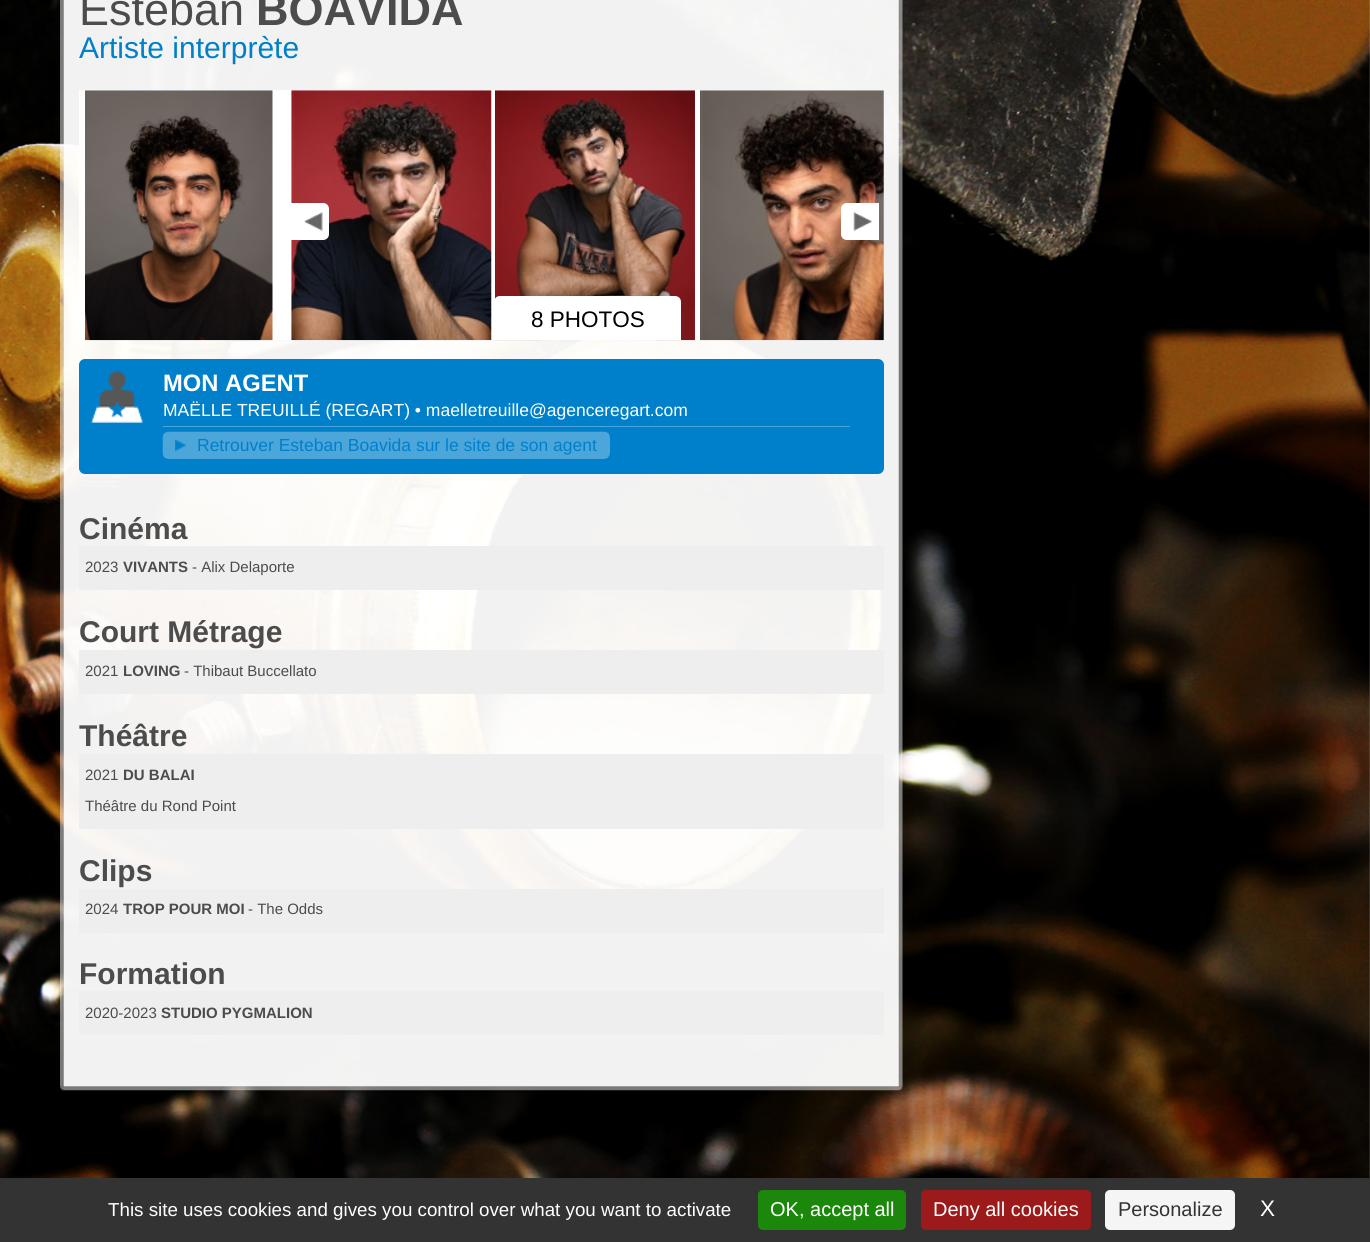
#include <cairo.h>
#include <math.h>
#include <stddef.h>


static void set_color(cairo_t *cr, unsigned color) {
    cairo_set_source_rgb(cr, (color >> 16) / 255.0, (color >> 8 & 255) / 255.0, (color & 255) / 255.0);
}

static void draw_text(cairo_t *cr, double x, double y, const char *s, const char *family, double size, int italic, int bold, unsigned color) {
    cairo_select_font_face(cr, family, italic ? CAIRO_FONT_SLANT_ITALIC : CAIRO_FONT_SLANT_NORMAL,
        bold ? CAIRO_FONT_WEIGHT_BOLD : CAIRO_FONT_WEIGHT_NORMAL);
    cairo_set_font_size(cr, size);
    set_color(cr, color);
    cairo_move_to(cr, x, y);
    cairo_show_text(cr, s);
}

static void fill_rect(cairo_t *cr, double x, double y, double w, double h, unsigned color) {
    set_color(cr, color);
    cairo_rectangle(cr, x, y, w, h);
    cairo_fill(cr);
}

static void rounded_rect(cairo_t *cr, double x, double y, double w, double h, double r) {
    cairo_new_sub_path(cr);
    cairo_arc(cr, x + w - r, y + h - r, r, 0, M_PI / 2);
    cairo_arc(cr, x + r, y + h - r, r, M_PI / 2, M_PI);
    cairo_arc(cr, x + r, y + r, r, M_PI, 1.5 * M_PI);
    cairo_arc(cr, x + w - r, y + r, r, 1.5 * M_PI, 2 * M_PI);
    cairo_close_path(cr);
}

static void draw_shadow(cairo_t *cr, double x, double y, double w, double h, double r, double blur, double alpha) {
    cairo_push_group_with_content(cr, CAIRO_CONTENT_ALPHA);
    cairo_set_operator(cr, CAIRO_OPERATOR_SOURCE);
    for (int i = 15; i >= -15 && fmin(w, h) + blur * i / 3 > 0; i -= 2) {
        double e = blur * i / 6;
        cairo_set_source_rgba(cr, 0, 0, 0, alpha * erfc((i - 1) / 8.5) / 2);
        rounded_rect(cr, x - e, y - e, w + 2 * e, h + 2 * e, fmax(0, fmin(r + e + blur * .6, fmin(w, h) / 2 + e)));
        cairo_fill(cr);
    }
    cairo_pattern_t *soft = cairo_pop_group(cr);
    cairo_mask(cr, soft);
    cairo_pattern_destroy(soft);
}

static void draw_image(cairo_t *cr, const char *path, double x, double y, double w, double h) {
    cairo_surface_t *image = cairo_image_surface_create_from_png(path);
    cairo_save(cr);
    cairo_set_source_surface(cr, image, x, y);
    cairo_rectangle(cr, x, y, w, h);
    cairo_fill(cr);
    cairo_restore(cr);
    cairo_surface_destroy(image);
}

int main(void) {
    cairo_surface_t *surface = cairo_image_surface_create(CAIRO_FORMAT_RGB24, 1370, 1242);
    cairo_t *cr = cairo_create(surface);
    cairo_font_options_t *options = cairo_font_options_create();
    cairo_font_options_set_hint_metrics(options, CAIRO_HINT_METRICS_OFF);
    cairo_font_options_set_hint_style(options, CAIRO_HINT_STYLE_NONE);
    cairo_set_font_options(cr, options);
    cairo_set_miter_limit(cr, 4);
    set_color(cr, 0xFFFFFF);
    cairo_paint(cr);
    draw_image(cr, "assets/img1.png", 0, 0, 1370, 1178);
    draw_image(cr, "assets/img2.png", 60, 0, 843, 1087);
    draw_text(cr, 79, 25, "Esteban", "Liberation Sans", 45, 0, 0, 0x4C4C4C);
    draw_text(cr, 256, 25, "BOAVIDA", "Liberation Sans", 45, 0, 1, 0x4C4C4C);
    draw_text(cr, 79, 58, "Artiste interprète", "Liberation Sans", 30, 0, 0, 0x0080CA);
    fill_rect(cr, 79, 90, 805, 250, 0xFFFFFF);
    draw_image(cr, "assets/img3.png", 85, 90, 188, 251);
    draw_image(cr, "assets/img4.png", 291, 90, 201, 251);
    draw_image(cr, "assets/img5.png", 495, 90, 200, 251);
    draw_image(cr, "assets/img6.png", 700, 90, 184, 251);
    cairo_new_path(cr);
    cairo_move_to(cr, 291, 203);
    cairo_line_to(cr, 323, 203);
    cairo_curve_to(cr, 326.5, 203, 329, 205.5, 329, 209);
    cairo_line_to(cr, 329, 234);
    cairo_curve_to(cr, 329, 237.5, 326.5, 240, 323, 240);
    cairo_line_to(cr, 291, 240);
    cairo_close_path(cr);
    cairo_fill(cr);
    draw_image(cr, "assets/img7.png", 304, 211, 19, 21);
    cairo_new_path(cr);
    cairo_move_to(cr, 847, 203);
    cairo_line_to(cr, 879, 203);
    cairo_line_to(cr, 879, 240);
    cairo_line_to(cr, 847, 240);
    cairo_curve_to(cr, 843.5, 240, 841, 237.5, 841, 234);
    cairo_line_to(cr, 841, 209);
    cairo_curve_to(cr, 841, 205.5, 843.5, 203, 847, 203);
    cairo_close_path(cr);
    cairo_fill(cr);
    draw_image(cr, "assets/img8.png", 853, 211, 20, 21);
    cairo_new_path(cr);
    cairo_move_to(cr, 500, 296);
    cairo_line_to(cr, 675, 296);
    cairo_curve_to(cr, 678.5, 296, 681, 298.5, 681, 302);
    cairo_line_to(cr, 681, 340);
    cairo_line_to(cr, 494, 340);
    cairo_line_to(cr, 494, 302);
    cairo_curve_to(cr, 494, 298.5, 496.5, 296, 500, 296);
    cairo_close_path(cr);
    cairo_fill(cr);
    draw_text(cr, 531, 327, "8 PHOTOS", "Liberation Sans", 22.5, 0, 0, 0x000000);
    set_color(cr, 0x0080CA);
    rounded_rect(cr, 79, 359, 805, 115, 6);
    cairo_fill(cr);
    draw_image(cr, "assets/img9.png", 91, 371, 52, 52);
    draw_text(cr, 163, 391, "MON AGENT", "Liberation Sans", 23.75, 0, 1, 0xFFFFFF);
    draw_text(cr, 163, 416, "MAËLLE TREUILLÉ (REGART) • maelletreuille@agenceregart.com", "Liberation Sans", 17.5, 0, 0, 0xFFFFFF);
    fill_rect(cr, 163, 426, 687, 1, 0x4DA6DA);
    draw_image(cr, "assets/img10.png", 162, 431, 448, 28);
    draw_image(cr, "assets/img11.png", 175, 439, 12, 13);
    draw_text(cr, 197, 451, "Retrouver Esteban Boavida sur le site de son agent", "Liberation Sans", 17.5, 0, 0, 0x0080CA);
    draw_text(cr, 79, 539, "Cinéma", "Liberation Sans", 30, 0, 1, 0x4C4C4C);
    fill_rect(cr, 79, 546, 805, 44, 0xEEEEEE);
    draw_text(cr, 85, 572, "2023", "Liberation Sans", 15, 0, 0, 0x4C4C4C);
    draw_text(cr, 123, 572, "VIVANTS", "Liberation Sans", 15, 0, 1, 0x4C4C4C);
    draw_text(cr, 192, 572, "- Alix Delaporte", "Liberation Sans", 15, 0, 0, 0x4C4C4C);
    draw_text(cr, 79, 642, "Court Métrage", "Liberation Sans", 30, 0, 1, 0x4C4C4C);
    fill_rect(cr, 79, 650, 805, 44, 0xEEEEEE);
    draw_text(cr, 85, 676, "2021", "Liberation Sans", 15, 0, 0, 0x4C4C4C);
    draw_text(cr, 123, 676, "LOVING", "Liberation Sans", 15, 0, 1, 0x4C4C4C);
    draw_text(cr, 184, 676, "- Thibaut Buccellato", "Liberation Sans", 15, 0, 0, 0x4C4C4C);
    draw_text(cr, 79, 746, "Théâtre", "Liberation Sans", 30, 0, 1, 0x4C4C4C);
    fill_rect(cr, 79, 754, 805, 75, 0xEEEEEE);
    draw_text(cr, 85, 780, "2021", "Liberation Sans", 15, 0, 0, 0x4C4C4C);
    draw_text(cr, 123, 780, "DU BALAI", "Liberation Sans", 15, 0, 1, 0x4C4C4C);
    draw_text(cr, 85, 811, "Théâtre du Rond Point", "Liberation Sans", 15, 0, 0, 0x4C4C4C);
    draw_text(cr, 79, 881, "Clips", "Liberation Sans", 30, 0, 1, 0x4C4C4C);
    fill_rect(cr, 79, 889, 805, 44, 0xEEEEEE);
    draw_text(cr, 85, 914, "2024", "Liberation Sans", 15, 0, 0, 0x4C4C4C);
    draw_text(cr, 123, 914, "TROP POUR MOI", "Liberation Sans", 15, 0, 1, 0x4C4C4C);
    draw_text(cr, 248, 914, "- The Odds", "Liberation Sans", 15, 0, 0, 0x4C4C4C);
    draw_text(cr, 79, 984, "Formation", "Liberation Sans", 30, 0, 1, 0x4C4C4C);
    fill_rect(cr, 79, 991, 805, 44, 0xEEEEEE);
    draw_text(cr, 85, 1018, "2020-2023", "Liberation Sans", 15, 0, 0, 0x4C4C4C);
    draw_text(cr, 161, 1018, "STUDIO PYGMALION", "Liberation Sans", 15, 0, 1, 0x4C4C4C);
    draw_image(cr, "assets/img12.png", 60, 1086, 843, 5);
    draw_image(cr, "assets/img13.png", 327, 1090, 261, 3);
    set_color(cr, 0x000000);
    draw_shadow(cr, 0, 1203, 1370, 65, 0, 37.5, 0.25);
    fill_rect(cr, 0, 1178, 1370, 64, 0x333333);
    draw_text(cr, 108, 1216, "This site uses cookies and gives you control over what you want to activate", "Liberation Sans", 18.75, 0, 0, 0xFFFFFF);
    set_color(cr, 0x1B870B);
    rounded_rect(cr, 758, 1190, 148, 40, 5);
    cairo_fill(cr);
    draw_text(cr, 770, 1216, "OK, accept all", "Liberation Sans", 20, 0, 0, 0xFFFFFF);
    set_color(cr, 0x9C1A1A);
    rounded_rect(cr, 921, 1190, 170, 40, 5);
    cairo_fill(cr);
    draw_text(cr, 933, 1216, "Deny all cookies", "Liberation Sans", 20, 0, 0, 0xFFFFFF);
    set_color(cr, 0xF5F5F5);
    rounded_rect(cr, 1105, 1190, 130, 40, 5);
    cairo_fill(cr);
    draw_text(cr, 1118, 1216, "Personalize", "Liberation Sans", 20, 0, 0, 0x333333);
    draw_text(cr, 1260, 1216, "X", "Liberation Sans", 22.5, 0, 0, 0xFFFFFF);
    cairo_surface_write_to_png(surface, "output.png");
    cairo_font_options_destroy(options);
    cairo_destroy(cr);
    cairo_surface_destroy(surface);
    return 0;
}
